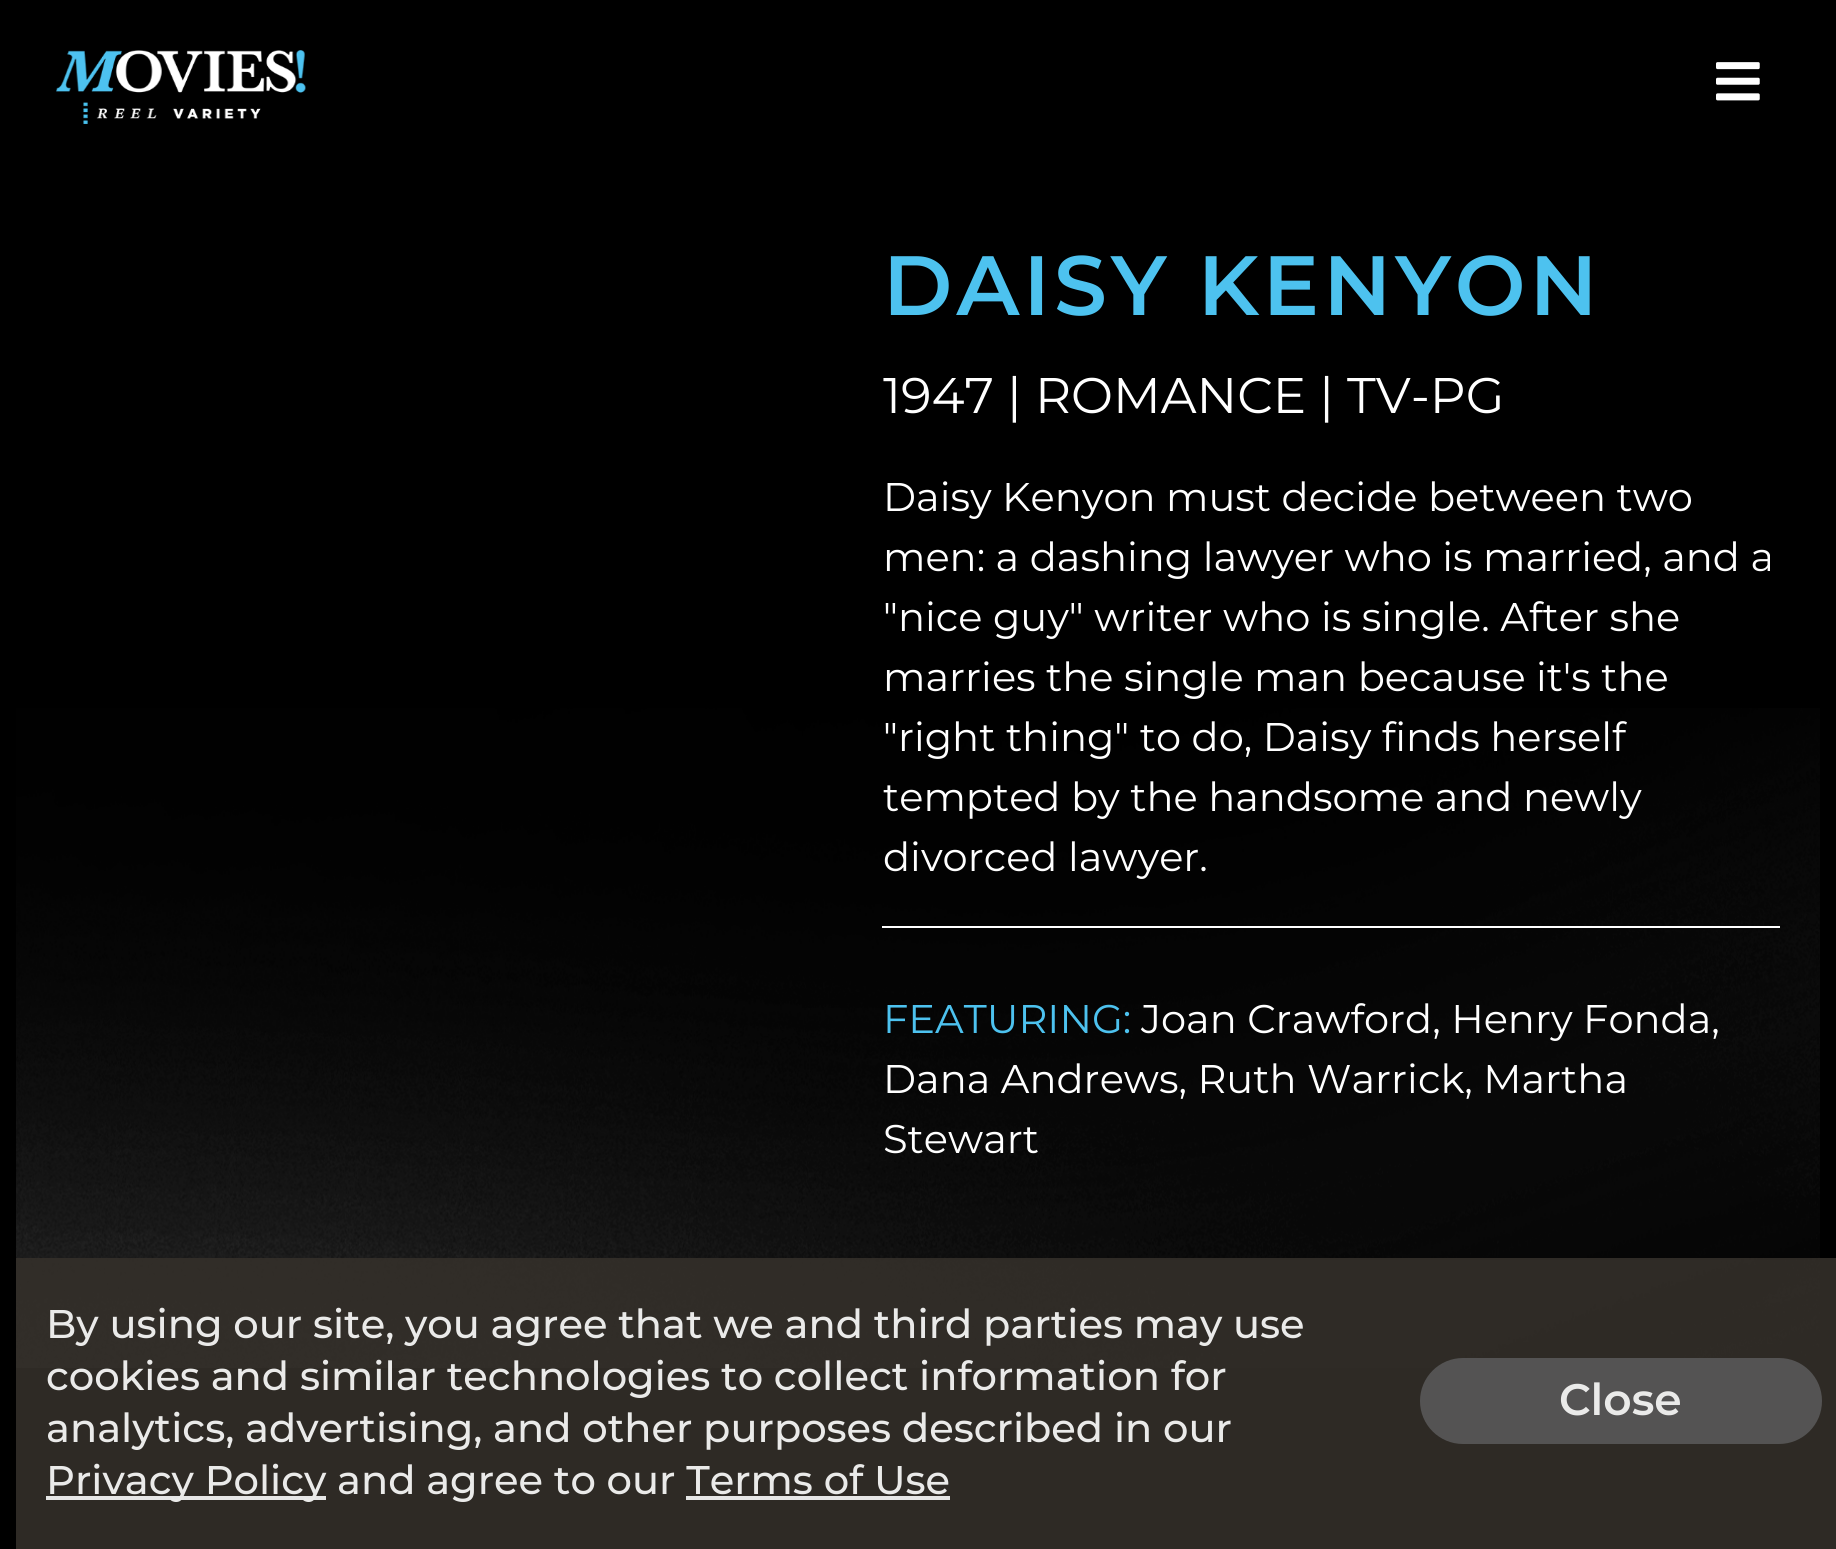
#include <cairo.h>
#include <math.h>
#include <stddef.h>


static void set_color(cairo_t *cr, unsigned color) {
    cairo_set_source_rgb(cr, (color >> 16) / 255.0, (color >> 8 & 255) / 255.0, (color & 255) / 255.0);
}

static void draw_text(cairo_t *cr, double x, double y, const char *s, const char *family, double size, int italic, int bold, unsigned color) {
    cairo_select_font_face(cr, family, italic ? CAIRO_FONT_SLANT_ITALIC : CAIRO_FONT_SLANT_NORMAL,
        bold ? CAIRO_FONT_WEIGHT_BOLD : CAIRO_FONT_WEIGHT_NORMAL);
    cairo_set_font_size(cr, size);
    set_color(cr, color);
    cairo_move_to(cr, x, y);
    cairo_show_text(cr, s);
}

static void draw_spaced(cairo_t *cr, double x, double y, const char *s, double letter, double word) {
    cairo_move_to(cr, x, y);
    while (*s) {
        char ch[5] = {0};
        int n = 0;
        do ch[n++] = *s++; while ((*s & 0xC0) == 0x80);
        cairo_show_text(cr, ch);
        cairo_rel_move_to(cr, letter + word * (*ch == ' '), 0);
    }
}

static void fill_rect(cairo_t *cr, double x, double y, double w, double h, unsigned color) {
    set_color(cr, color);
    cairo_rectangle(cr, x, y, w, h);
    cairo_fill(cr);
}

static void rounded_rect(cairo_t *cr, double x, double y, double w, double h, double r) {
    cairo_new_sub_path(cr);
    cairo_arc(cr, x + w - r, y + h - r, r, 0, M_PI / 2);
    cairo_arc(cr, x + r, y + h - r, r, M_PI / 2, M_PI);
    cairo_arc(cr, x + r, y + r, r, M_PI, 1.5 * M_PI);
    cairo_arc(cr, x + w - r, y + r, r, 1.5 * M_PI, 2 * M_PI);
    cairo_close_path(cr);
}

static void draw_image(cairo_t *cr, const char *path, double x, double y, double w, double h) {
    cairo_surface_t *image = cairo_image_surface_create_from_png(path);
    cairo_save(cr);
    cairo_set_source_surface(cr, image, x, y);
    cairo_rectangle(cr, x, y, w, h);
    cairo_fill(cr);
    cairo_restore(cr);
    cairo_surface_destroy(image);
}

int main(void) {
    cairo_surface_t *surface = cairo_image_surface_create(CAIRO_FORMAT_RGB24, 1836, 1549);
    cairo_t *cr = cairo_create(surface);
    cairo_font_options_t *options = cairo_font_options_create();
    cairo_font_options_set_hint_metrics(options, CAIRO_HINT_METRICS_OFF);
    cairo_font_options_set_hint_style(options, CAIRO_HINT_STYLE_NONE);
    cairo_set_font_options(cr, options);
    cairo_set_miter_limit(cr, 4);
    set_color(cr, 0x000000);
    cairo_paint(cr);
    draw_image(cr, "assets/img1.png", 56, 50, 250, 74);
    draw_image(cr, "assets/img2.png", 1716, 62, 44, 39);
    draw_image(cr, "assets/img3.png", 16, 708, 1804, 660);
    cairo_select_font_face(cr, "Montserrat SemiBold", CAIRO_FONT_SLANT_NORMAL, CAIRO_FONT_WEIGHT_NORMAL);
    cairo_set_font_size(cr, 84);
    set_color(cr, 0x4DC2EF);
    draw_spaced(cr, 883, 315, "DAISY KENYON", 4, 0);
    draw_text(cr, 883, 413, "1947 | ROMANCE | TV-PG", "Montserrat", 50, 0, 0, 0xFFFFFF);
    draw_text(cr, 883, 511, "Daisy Kenyon must decide between two", "Montserrat", 40, 0, 0, 0xFFFFFF);
    draw_text(cr, 883, 571, "men: a dashing lawyer who is married, and a", "Montserrat", 40, 0, 0, 0xFFFFFF);
    draw_text(cr, 883, 631, "\"nice guy\" writer who is single. After she", "Montserrat", 40, 0, 0, 0xFFFFFF);
    draw_text(cr, 883, 691, "marries the single man because it's the", "Montserrat", 40, 0, 0, 0xFFFFFF);
    draw_text(cr, 883, 751, "\"right thing\" to do, Daisy finds herself", "Montserrat", 40, 0, 0, 0xFFFFFF);
    draw_text(cr, 883, 811, "tempted by the handsome and newly", "Montserrat", 40, 0, 0, 0xFFFFFF);
    draw_text(cr, 883, 871, "divorced lawyer.", "Montserrat", 40, 0, 0, 0xFFFFFF);
    fill_rect(cr, 882, 926, 898, 2, 0xFFFFFF);
    draw_text(cr, 883, 1033, "FEATURING:", "Montserrat", 40, 0, 0, 0x4DC2EF);
    draw_text(cr, 1141, 1033, "Joan Crawford, Henry Fonda,", "Montserrat", 40, 0, 0, 0xFFFFFF);
    draw_text(cr, 883, 1093, "Dana Andrews, Ruth Warrick, Martha", "Montserrat", 40, 0, 0, 0xFFFFFF);
    draw_text(cr, 883, 1153, "Stewart", "Montserrat", 40, 0, 0, 0xFFFFFF);
    cairo_set_source_rgba(cr, 0.2, 0.184, 0.161, 0.9);
    cairo_rectangle(cr, 16, 1258, 1820, 291);
    cairo_fill(cr);
    draw_text(cr, 46, 1338, "By using our site, you agree that we and third parties may use", "Montserrat Medium", 40, 0, 0, 0xEAEAE9);
    draw_text(cr, 46, 1390, "cookies and similar technologies to collect information for", "Montserrat Medium", 40, 0, 0, 0xEAEAE9);
    draw_text(cr, 46, 1442, "analytics, advertising, and other purposes described in our", "Montserrat Medium", 40, 0, 0, 0xEAEAE9);
    fill_rect(cr, 46, 1496, 280, 4, 0xE6E6E6);
    draw_text(cr, 46, 1494, "Privacy Policy", "Montserrat Medium", 40, 0, 0, 0xEAEAE9);
    draw_text(cr, 337, 1494, "and agree to our Terms of Use", "Montserrat Medium", 40, 0, 0, 0xEAEAE9);
    fill_rect(cr, 686, 1496, 264, 4, 0xE6E6E6);
    set_color(cr, 0x545353);
    rounded_rect(cr, 1420, 1358, 402, 86, 43);
    cairo_fill(cr);
    draw_text(cr, 1559, 1415, "Close", "Montserrat SemiBold", 44, 0, 0, 0xEAEAE9);
    cairo_surface_write_to_png(surface, "output.png");
    cairo_font_options_destroy(options);
    cairo_destroy(cr);
    cairo_surface_destroy(surface);
    return 0;
}
